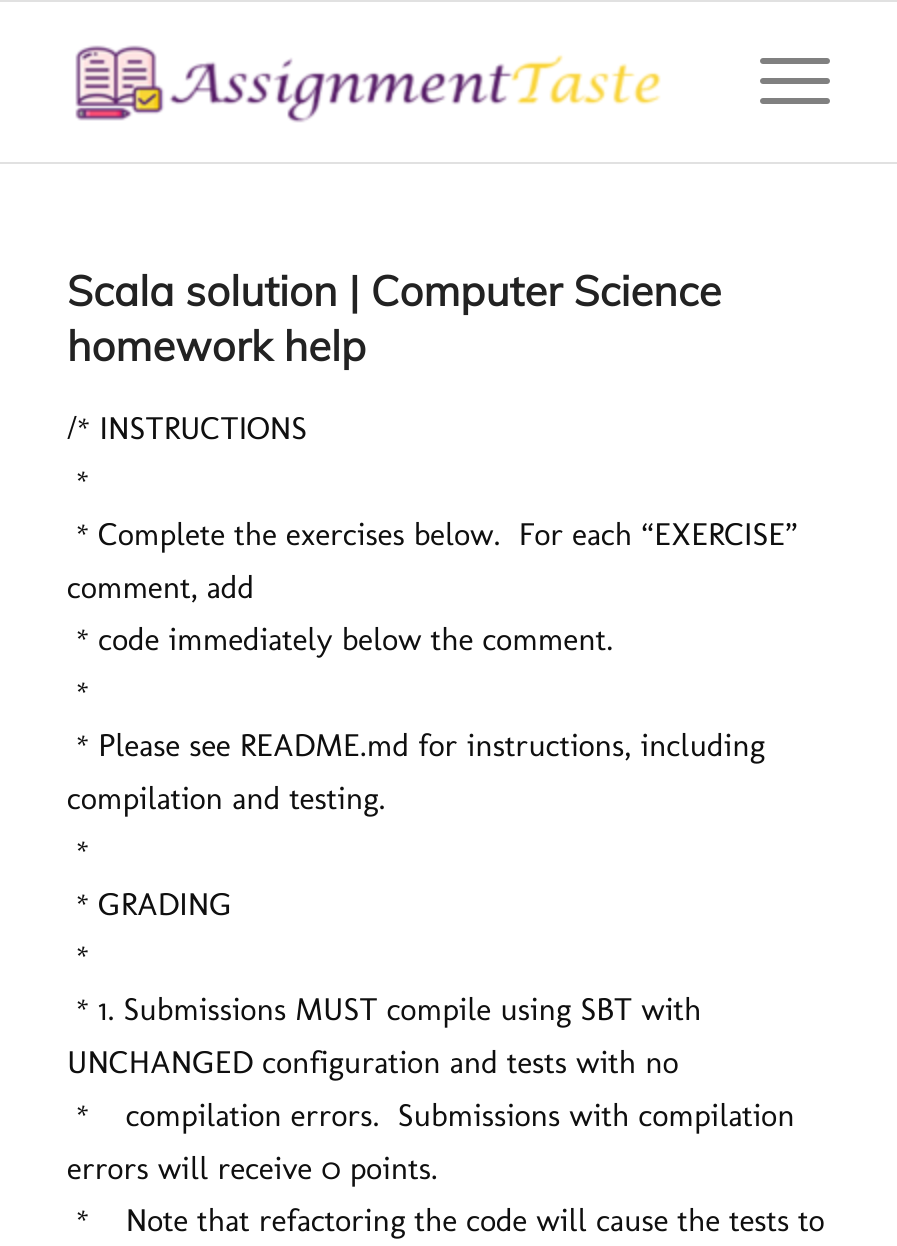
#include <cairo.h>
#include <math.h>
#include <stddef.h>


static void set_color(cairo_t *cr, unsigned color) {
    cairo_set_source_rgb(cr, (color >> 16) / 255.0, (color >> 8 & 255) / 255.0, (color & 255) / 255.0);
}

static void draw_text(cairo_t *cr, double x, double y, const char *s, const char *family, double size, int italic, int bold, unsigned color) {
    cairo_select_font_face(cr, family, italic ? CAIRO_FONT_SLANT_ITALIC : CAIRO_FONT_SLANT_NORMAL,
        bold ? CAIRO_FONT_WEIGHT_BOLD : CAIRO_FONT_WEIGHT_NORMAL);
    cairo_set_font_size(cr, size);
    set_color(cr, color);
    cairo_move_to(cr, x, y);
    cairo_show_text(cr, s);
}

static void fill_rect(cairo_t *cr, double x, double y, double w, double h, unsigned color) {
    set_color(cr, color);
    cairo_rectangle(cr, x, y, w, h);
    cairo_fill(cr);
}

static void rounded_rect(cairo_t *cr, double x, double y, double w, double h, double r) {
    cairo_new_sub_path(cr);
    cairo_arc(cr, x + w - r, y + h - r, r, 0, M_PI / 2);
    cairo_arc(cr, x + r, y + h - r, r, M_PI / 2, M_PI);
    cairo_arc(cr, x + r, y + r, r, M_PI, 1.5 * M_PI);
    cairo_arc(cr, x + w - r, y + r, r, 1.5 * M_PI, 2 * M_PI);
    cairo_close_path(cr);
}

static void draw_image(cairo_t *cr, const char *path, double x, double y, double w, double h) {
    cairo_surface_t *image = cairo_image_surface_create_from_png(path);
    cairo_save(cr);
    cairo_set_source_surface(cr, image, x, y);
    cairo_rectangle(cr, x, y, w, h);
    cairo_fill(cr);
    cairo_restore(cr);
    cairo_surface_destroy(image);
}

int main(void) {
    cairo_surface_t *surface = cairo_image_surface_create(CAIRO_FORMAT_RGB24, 897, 1246);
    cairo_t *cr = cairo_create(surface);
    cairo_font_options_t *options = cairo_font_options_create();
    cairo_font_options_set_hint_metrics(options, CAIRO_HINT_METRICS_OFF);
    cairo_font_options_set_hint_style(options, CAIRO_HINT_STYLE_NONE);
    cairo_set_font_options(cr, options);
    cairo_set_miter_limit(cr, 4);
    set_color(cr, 0xFFFFFF);
    cairo_paint(cr);
    fill_rect(cr, 0, 0, 897, 2, 0xE1E1E1);
    fill_rect(cr, 0, 162, 897, 2, 0xE1E1E1);
    draw_image(cr, "assets/img1.png", 75, 45, 586, 78);
    set_color(cr, 0x808080);
    rounded_rect(cr, 760, 78, 70, 6, 3);
    cairo_fill(cr);
    rounded_rect(cr, 760, 58, 70, 6, 3);
    cairo_fill(cr);
    rounded_rect(cr, 760, 98, 70, 6, 3);
    cairo_fill(cr);
    draw_text(cr, 67, 306, "Scala solution | Computer Science", "Muli", 42, 0, 1, 0x222222);
    draw_text(cr, 67, 361, "homework help", "Muli", 42, 0, 1, 0x222222);
    draw_text(cr, 67, 439, "/* INSTRUCTIONS", "Molengo", 32, 0, 0, 0x0F0F0F);
    draw_text(cr, 76, 492, "*", "Molengo", 32, 0, 0, 0x0F0F0F);
    draw_text(cr, 76, 545, "* Complete the exercises below.  For each “EXERCISE”", "Molengo", 32, 0, 0, 0x0F0F0F);
    draw_text(cr, 67, 598, "comment, add", "Molengo", 32, 0, 0, 0x0F0F0F);
    draw_text(cr, 76, 650, "* code immediately below the comment.", "Molengo", 32, 0, 0, 0x0F0F0F);
    draw_text(cr, 76, 703, "*", "Molengo", 32, 0, 0, 0x0F0F0F);
    draw_text(cr, 76, 756, "* Please see README.md for instructions, including", "Molengo", 32, 0, 0, 0x0F0F0F);
    draw_text(cr, 67, 809, "compilation and testing.", "Molengo", 32, 0, 0, 0x0F0F0F);
    draw_text(cr, 76, 862, "*", "Molengo", 32, 0, 0, 0x0F0F0F);
    draw_text(cr, 76, 915, "* GRADING", "Molengo", 32, 0, 0, 0x0F0F0F);
    draw_text(cr, 76, 967, "*", "Molengo", 32, 0, 0, 0x0F0F0F);
    draw_text(cr, 76, 1020, "* 1. Submissions MUST compile using SBT with", "Molengo", 32, 0, 0, 0x0F0F0F);
    draw_text(cr, 67, 1073, "UNCHANGED configuration and tests with no", "Molengo", 32, 0, 0, 0x0F0F0F);
    draw_text(cr, 76, 1126, "*    compilation errors.  Submissions with compilation", "Molengo", 32, 0, 0, 0x0F0F0F);
    draw_text(cr, 67, 1179, "errors will receive 0 points.", "Molengo", 32, 0, 0, 0x0F0F0F);
    draw_text(cr, 76, 1231, "*    Note that refactoring the code will cause the tests to", "Molengo", 32, 0, 0, 0x0F0F0F);
    cairo_surface_write_to_png(surface, "output.png");
    cairo_font_options_destroy(options);
    cairo_destroy(cr);
    cairo_surface_destroy(surface);
    return 0;
}
